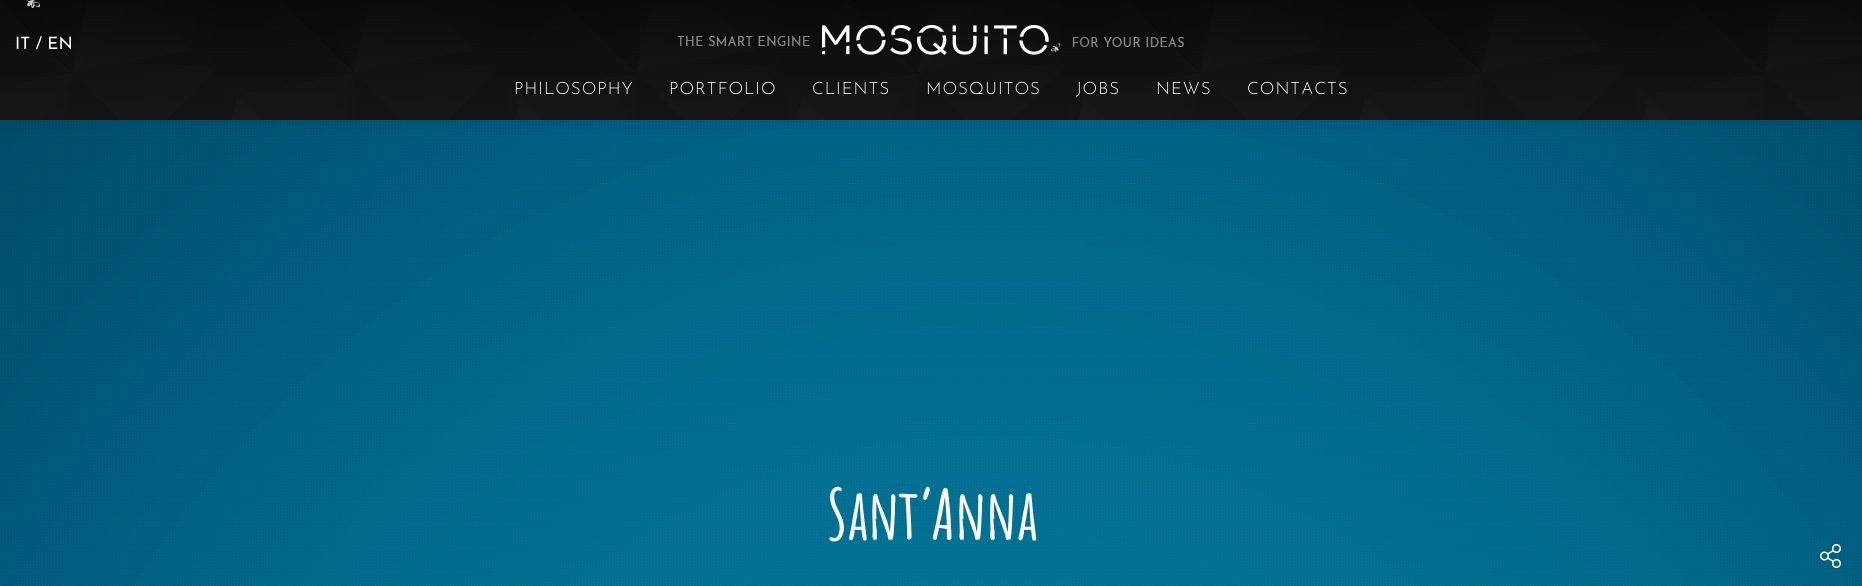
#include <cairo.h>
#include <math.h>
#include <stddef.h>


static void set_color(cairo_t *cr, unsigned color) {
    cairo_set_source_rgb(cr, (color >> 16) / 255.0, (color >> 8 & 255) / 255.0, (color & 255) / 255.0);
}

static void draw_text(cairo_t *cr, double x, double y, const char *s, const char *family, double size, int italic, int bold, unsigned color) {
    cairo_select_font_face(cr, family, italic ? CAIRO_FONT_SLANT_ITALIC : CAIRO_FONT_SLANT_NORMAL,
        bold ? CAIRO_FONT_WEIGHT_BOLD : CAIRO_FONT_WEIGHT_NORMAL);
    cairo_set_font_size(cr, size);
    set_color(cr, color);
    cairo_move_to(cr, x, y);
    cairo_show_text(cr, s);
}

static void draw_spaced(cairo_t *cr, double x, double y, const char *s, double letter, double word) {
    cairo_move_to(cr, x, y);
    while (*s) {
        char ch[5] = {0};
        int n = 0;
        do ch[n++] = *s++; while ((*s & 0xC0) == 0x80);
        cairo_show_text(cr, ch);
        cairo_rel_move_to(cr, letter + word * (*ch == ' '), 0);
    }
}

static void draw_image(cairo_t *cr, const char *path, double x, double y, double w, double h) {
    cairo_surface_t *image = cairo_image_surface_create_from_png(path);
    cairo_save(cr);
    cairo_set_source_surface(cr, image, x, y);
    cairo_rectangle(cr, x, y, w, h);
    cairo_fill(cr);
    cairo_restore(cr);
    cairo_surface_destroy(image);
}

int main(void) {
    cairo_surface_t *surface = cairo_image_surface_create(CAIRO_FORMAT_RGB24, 1862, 586);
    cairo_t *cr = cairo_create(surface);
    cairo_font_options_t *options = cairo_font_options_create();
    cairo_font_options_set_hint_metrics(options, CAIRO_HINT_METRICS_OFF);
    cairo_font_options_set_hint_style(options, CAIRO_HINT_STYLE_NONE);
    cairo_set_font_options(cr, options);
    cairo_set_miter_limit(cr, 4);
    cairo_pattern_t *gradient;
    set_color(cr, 0xFFFFFF);
    cairo_paint(cr);
    draw_image(cr, "assets/img5.png", 0, 0, 1862, 120);
    draw_image(cr, "assets/img6.png", 0, 120, 1862, 466);
    draw_image(cr, "assets/img7.png", 0, 120, 1862, 466);
    gradient = cairo_pattern_create_linear(931, 0, 931, 160);
    cairo_pattern_add_color_stop_rgba(gradient, 0, 0, 0, 0, 0.5);
    cairo_pattern_add_color_stop_rgba(gradient, 0.01, 0, 0, 0, 0.5);
    cairo_pattern_add_color_stop_rgba(gradient, 0.5, 0, 0, 0, 0.15);
    cairo_pattern_add_color_stop_rgba(gradient, 0.7, 0, 0, 0, 0.05);
    cairo_pattern_add_color_stop_rgba(gradient, 0.89, 0, 0, 0, 0);
    cairo_pattern_add_color_stop_rgba(gradient, 1, 0, 0, 0, 0);
    cairo_set_source(cr, gradient);
    cairo_pattern_destroy(gradient);
    cairo_rectangle(cr, 0, 0, 1862, 129);
    cairo_fill(cr);
    draw_image(cr, "assets/img1.png", 26, 0, 14, 8);
    draw_text(cr, 15, 49, "IT / EN", "Josefin Sans", 17, 0, 0, 0xFFFFFF);
    draw_image(cr, "assets/img2.png", 677, 35, 133, 12);
    draw_image(cr, "assets/img3.png", 822, 25, 238, 30);
    draw_image(cr, "assets/img4.png", 1072, 36, 112, 11);
    cairo_select_font_face(cr, "Josefin Sans Light", CAIRO_FONT_SLANT_NORMAL, CAIRO_FONT_WEIGHT_NORMAL);
    draw_spaced(cr, 514, 94, "PHILOSOPHY", 1, 0);
    draw_spaced(cr, 669, 94, "PORTFOLIO", 1, 0);
    draw_spaced(cr, 812, 94, "CLIENTS", 1, 0);
    draw_spaced(cr, 926, 94, "MOSQUITOS", 1, 0);
    draw_spaced(cr, 1076, 94, "JOBS", 1, 0);
    draw_spaced(cr, 1156, 94, "NEWS", 1, 0);
    draw_spaced(cr, 1247, 94, "CONTACTS", 1, 0);
    draw_text(cr, 826, 540, "Sant’Anna", "Amatic SC", 67, 0, 1, 0xFFFFFF);
    draw_image(cr, "assets/img8.png", 1820, 544, 21, 24);
    cairo_surface_write_to_png(surface, "output.png");
    cairo_font_options_destroy(options);
    cairo_destroy(cr);
    cairo_surface_destroy(surface);
    return 0;
}
